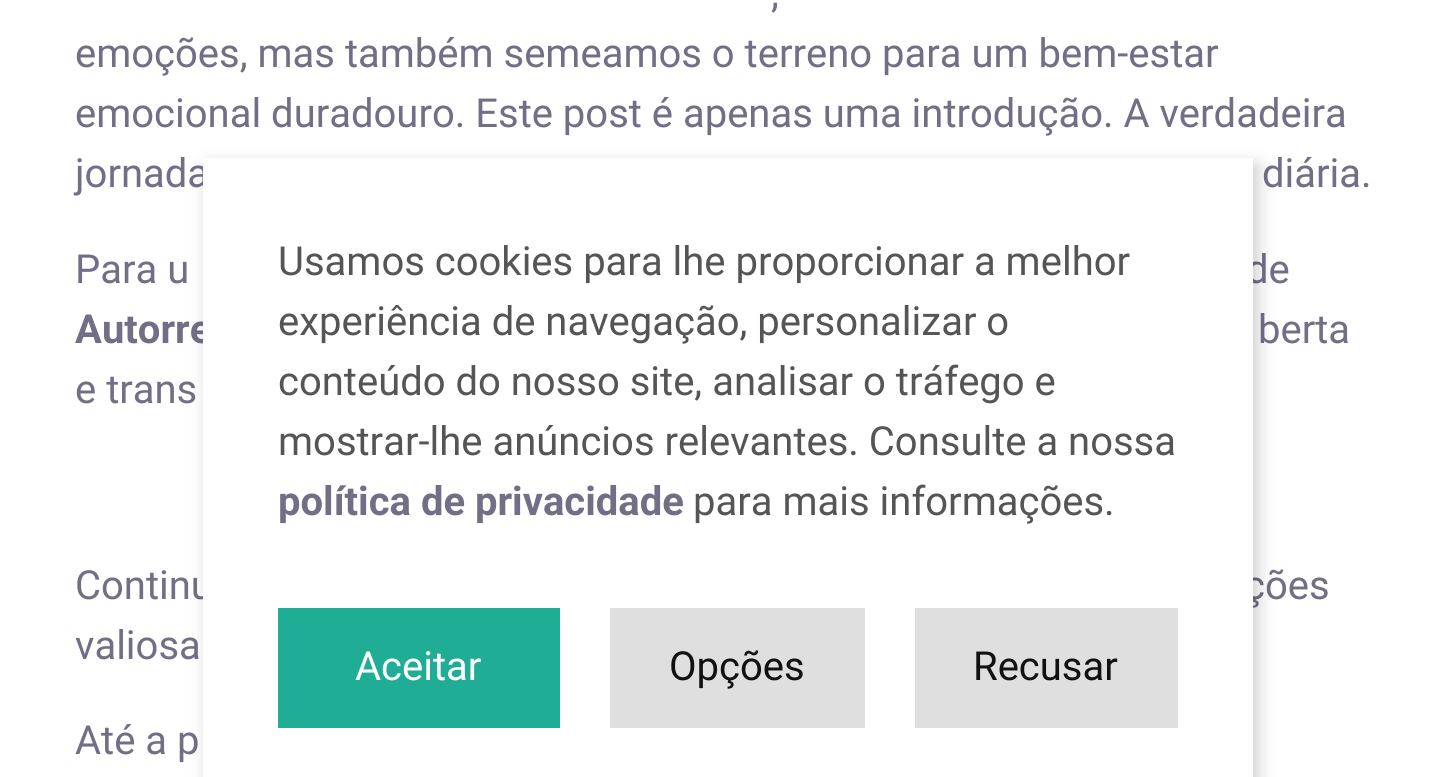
#include <cairo.h>
#include <math.h>
#include <stddef.h>


static void set_color(cairo_t *cr, unsigned color) {
    cairo_set_source_rgb(cr, (color >> 16) / 255.0, (color >> 8 & 255) / 255.0, (color & 255) / 255.0);
}

static void draw_text(cairo_t *cr, double x, double y, const char *s, const char *family, double size, int italic, int bold, unsigned color) {
    cairo_select_font_face(cr, family, italic ? CAIRO_FONT_SLANT_ITALIC : CAIRO_FONT_SLANT_NORMAL,
        bold ? CAIRO_FONT_WEIGHT_BOLD : CAIRO_FONT_WEIGHT_NORMAL);
    cairo_set_font_size(cr, size);
    set_color(cr, color);
    cairo_move_to(cr, x, y);
    cairo_show_text(cr, s);
}

static void fill_rect(cairo_t *cr, double x, double y, double w, double h, unsigned color) {
    set_color(cr, color);
    cairo_rectangle(cr, x, y, w, h);
    cairo_fill(cr);
}

static void rounded_rect(cairo_t *cr, double x, double y, double w, double h, double r) {
    cairo_new_sub_path(cr);
    cairo_arc(cr, x + w - r, y + h - r, r, 0, M_PI / 2);
    cairo_arc(cr, x + r, y + h - r, r, M_PI / 2, M_PI);
    cairo_arc(cr, x + r, y + r, r, M_PI, 1.5 * M_PI);
    cairo_arc(cr, x + w - r, y + r, r, 1.5 * M_PI, 2 * M_PI);
    cairo_close_path(cr);
}

static void draw_shadow(cairo_t *cr, double x, double y, double w, double h, double r, double blur, double alpha) {
    cairo_push_group_with_content(cr, CAIRO_CONTENT_ALPHA);
    cairo_set_operator(cr, CAIRO_OPERATOR_SOURCE);
    for (int i = 15; i >= -15 && fmin(w, h) + blur * i / 3 > 0; i -= 2) {
        double e = blur * i / 6;
        cairo_set_source_rgba(cr, 0, 0, 0, alpha * erfc((i - 1) / 8.5) / 2);
        rounded_rect(cr, x - e, y - e, w + 2 * e, h + 2 * e, fmax(0, fmin(r + e + blur * .6, fmin(w, h) / 2 + e)));
        cairo_fill(cr);
    }
    cairo_pattern_t *soft = cairo_pop_group(cr);
    cairo_mask(cr, soft);
    cairo_pattern_destroy(soft);
}

int main(void) {
    cairo_surface_t *surface = cairo_image_surface_create(CAIRO_FORMAT_RGB24, 1453, 777);
    cairo_t *cr = cairo_create(surface);
    cairo_font_options_t *options = cairo_font_options_create();
    cairo_font_options_set_hint_metrics(options, CAIRO_HINT_METRICS_OFF);
    cairo_font_options_set_hint_style(options, CAIRO_HINT_STYLE_NONE);
    cairo_set_font_options(cr, options);
    cairo_set_miter_limit(cr, 4);
    set_color(cr, 0xFFFFFF);
    cairo_paint(cr);
    draw_text(cr, 771, 7, ",", "Roboto", 40, 0, 0, 0x716E86);
    draw_text(cr, 75, 67, "emoções, mas também semeamos o terreno para um bem-estar", "Roboto", 40, 0, 0, 0x716E86);
    draw_text(cr, 75, 127, "emocional duradouro. Este post é apenas uma introdução. A verdadeira", "Roboto", 40, 0, 0, 0x716E86);
    draw_text(cr, 75, 187, "jornada", "Roboto", 40, 0, 0, 0x716E86);
    draw_text(cr, 1262, 187, "diária.", "Roboto", 40, 0, 0, 0x716E86);
    draw_text(cr, 75, 283, "Para u", "Roboto", 40, 0, 0, 0x716E86);
    draw_text(cr, 1246, 283, "de", "Roboto", 40, 0, 0, 0x716E86);
    draw_text(cr, 75, 343, "Autorre", "Roboto", 40, 0, 1, 0x716E86);
    draw_text(cr, 1258, 343, "berta", "Roboto", 40, 0, 0, 0x716E86);
    draw_text(cr, 75, 403, "e trans", "Roboto", 40, 0, 0, 0x716E86);
    draw_text(cr, 75, 599, "Continu", "Roboto", 40, 0, 0, 0x716E86);
    draw_text(cr, 1244, 599, "ções", "Roboto", 40, 0, 0, 0x716E86);
    draw_text(cr, 75, 659, "valiosa", "Roboto", 40, 0, 0, 0x716E86);
    draw_text(cr, 75, 754, "Até a p", "Roboto", 40, 0, 0, 0x716E86);
    set_color(cr, 0x000000);
    draw_shadow(cr, 208, 165, 1050, 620, 0, 9, 0.2);
    fill_rect(cr, 203, 158, 1050, 619, 0xFFFFFF);
    draw_text(cr, 278, 275, "Usamos cookies para lhe proporcionar a melhor", "Roboto", 40, 0, 0, 0x555555);
    draw_text(cr, 278, 335, "experiência de navegação, personalizar o", "Roboto", 40, 0, 0, 0x555555);
    draw_text(cr, 278, 395, "conteúdo do nosso site, analisar o tráfego e", "Roboto", 40, 0, 0, 0x555555);
    draw_text(cr, 278, 455, "mostrar-lhe anúncios relevantes. Consulte a nossa", "Roboto", 40, 0, 0, 0x555555);
    draw_text(cr, 278, 515, "política de privacidade", "Roboto", 40, 0, 1, 0x716E86);
    draw_text(cr, 693, 515, "para mais informações.", "Roboto", 40, 0, 0, 0x555555);
    fill_rect(cr, 278, 608, 282, 120, 0x20AD96);
    draw_text(cr, 355, 680, "Aceitar", "Roboto", 40, 0, 0, 0xFFFFFF);
    fill_rect(cr, 610, 608, 255, 120, 0xDFDFDF);
    draw_text(cr, 669, 680, "Opções", "Roboto", 40, 0, 0, 0x111111);
    fill_rect(cr, 915, 608, 263, 120, 0xDFDFDF);
    draw_text(cr, 973, 680, "Recusar", "Roboto", 40, 0, 0, 0x111111);
    cairo_surface_write_to_png(surface, "output.png");
    cairo_font_options_destroy(options);
    cairo_destroy(cr);
    cairo_surface_destroy(surface);
    return 0;
}
